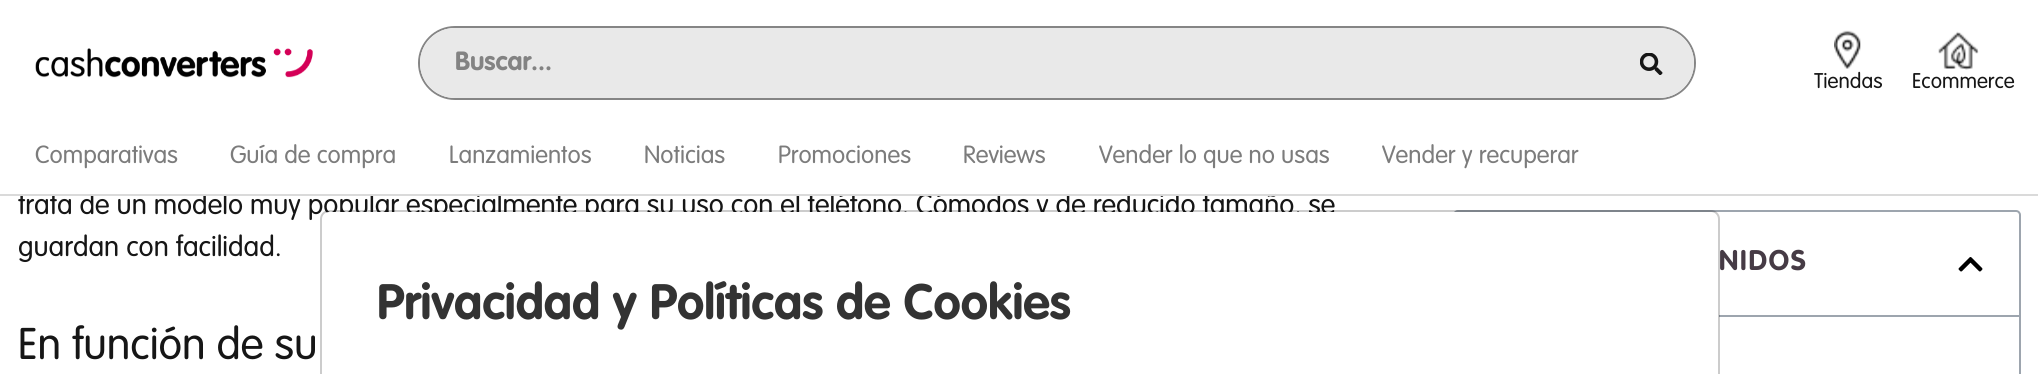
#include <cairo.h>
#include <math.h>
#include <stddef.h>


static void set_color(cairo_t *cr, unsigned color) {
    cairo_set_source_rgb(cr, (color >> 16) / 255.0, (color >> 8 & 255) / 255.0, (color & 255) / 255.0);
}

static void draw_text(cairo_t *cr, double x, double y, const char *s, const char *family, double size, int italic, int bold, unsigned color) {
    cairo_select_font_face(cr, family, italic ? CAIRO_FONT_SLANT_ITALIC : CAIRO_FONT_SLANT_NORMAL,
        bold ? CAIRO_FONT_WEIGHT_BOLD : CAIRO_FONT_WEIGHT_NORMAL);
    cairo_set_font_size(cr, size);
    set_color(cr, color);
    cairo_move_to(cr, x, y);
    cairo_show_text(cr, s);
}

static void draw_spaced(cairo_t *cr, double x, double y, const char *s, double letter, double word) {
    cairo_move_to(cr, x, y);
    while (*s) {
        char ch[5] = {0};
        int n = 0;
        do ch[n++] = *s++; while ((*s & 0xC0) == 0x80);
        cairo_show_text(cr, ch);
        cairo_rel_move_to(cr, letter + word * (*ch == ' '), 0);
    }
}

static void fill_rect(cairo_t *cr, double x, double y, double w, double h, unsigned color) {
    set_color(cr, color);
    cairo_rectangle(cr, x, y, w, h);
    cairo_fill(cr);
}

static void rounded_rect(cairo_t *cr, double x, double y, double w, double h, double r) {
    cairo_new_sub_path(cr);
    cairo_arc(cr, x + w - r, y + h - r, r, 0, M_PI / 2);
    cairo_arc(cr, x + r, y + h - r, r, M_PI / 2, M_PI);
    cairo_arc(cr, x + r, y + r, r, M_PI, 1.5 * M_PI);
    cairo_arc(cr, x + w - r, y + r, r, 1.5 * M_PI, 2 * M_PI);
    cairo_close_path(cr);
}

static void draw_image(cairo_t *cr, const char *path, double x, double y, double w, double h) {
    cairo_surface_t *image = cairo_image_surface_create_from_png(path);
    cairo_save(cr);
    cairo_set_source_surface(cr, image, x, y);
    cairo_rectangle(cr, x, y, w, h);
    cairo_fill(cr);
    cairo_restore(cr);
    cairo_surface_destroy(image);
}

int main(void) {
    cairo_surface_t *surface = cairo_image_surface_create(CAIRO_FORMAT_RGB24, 2038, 374);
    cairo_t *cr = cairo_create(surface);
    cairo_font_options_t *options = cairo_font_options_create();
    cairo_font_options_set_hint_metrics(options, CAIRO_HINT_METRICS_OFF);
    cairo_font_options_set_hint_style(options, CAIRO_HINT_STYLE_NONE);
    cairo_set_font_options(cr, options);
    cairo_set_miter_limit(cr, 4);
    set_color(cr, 0xFFFFFF);
    cairo_paint(cr);
    draw_text(cr, 18, 214, "trata de un modelo muy popular especialmente para su uso con el teléfono. Cómodos y de reducido tamaño, se", "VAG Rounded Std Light", 28, 0, 0, 0x161616);
    fill_rect(cr, 90, 192, 1185, 2, 0xFFFFFF);
    fill_rect(cr, 0, 194, 2038, 2, 0xDADADA);
    draw_image(cr, "assets/img1.png", 35, 48, 278, 30);
    rounded_rect(cr, 419, 27, 1276, 72, 36);
    set_color(cr, 0x858585);
    cairo_stroke(cr);
    set_color(cr, 0xE9E9E9);
    cairo_new_path(cr);
    cairo_move_to(cr, 455, 28);
    cairo_line_to(cr, 1622, 28);
    cairo_line_to(cr, 1622, 98);
    cairo_line_to(cr, 455, 98);
    cairo_curve_to(cr, 435.5, 98, 420, 82.5, 420, 63);
    cairo_curve_to(cr, 420, 43.5, 435.5, 28, 455, 28);
    cairo_close_path(cr);
    cairo_fill(cr);
    draw_text(cr, 455, 70, "Buscar...", "VAG Rounded Std", 26, 0, 1, 0x838383);
    set_color(cr, 0xE9E9E9);
    cairo_new_path(cr);
    cairo_move_to(cr, 1622, 28);
    cairo_line_to(cr, 1659, 28);
    cairo_curve_to(cr, 1678.5, 28, 1694, 43.5, 1694, 63);
    cairo_curve_to(cr, 1694, 82.5, 1678.5, 98, 1659, 98);
    cairo_line_to(cr, 1622, 98);
    cairo_close_path(cr);
    cairo_fill(cr);
    draw_image(cr, "assets/img2.png", 1640, 53, 23, 22);
    draw_image(cr, "assets/img3.png", 1834, 30, 27, 39);
    draw_text(cr, 1814, 88, "Tiendas", "VAG Rounded Std Light", 21, 0, 0, 0x161616);
    draw_image(cr, "assets/img4.png", 1938, 31, 41, 39);
    draw_text(cr, 1912, 88, "Ecommerce", "VAG Rounded Std Light", 21, 0, 0, 0x161616);
    draw_text(cr, 35, 163, "Comparativas", "VAG Rounded Std Light", 24.5, 0, 0, 0x7C7C7C);
    draw_text(cr, 230, 163, "Guía de compra", "VAG Rounded Std Light", 24.5, 0, 0, 0x7C7C7C);
    draw_text(cr, 449, 163, "Lanzamientos", "VAG Rounded Std Light", 24.5, 0, 0, 0x7C7C7C);
    draw_text(cr, 644, 163, "Noticias", "VAG Rounded Std Light", 24.5, 0, 0, 0x7C7C7C);
    draw_text(cr, 778, 163, "Promociones", "VAG Rounded Std Light", 24.5, 0, 0, 0x7C7C7C);
    draw_text(cr, 963, 163, "Reviews", "VAG Rounded Std Light", 24.5, 0, 0, 0x7C7C7C);
    draw_text(cr, 1099, 163, "Vender lo que no usas", "VAG Rounded Std Light", 24.5, 0, 0, 0x7C7C7C);
    draw_text(cr, 1382, 163, "Vender y recuperar", "VAG Rounded Std Light", 24.5, 0, 0, 0x7C7C7C);
    draw_text(cr, 18, 256, "guardan con facilidad.", "VAG Rounded Std Light", 28, 0, 0, 0x161616);
    draw_text(cr, 18, 359, "En función de su", "VAG Rounded Std Light", 43.75, 0, 0, 0x161616);
    rounded_rect(cr, 1454, 211, 566, 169, 4);
    set_color(cr, 0x9DA5AE);
    cairo_stroke(cr);
    fill_rect(cr, 1719, 315, 301, 2, 0x9DA5AE);
    cairo_select_font_face(cr, "VAG Rounded Std", CAIRO_FONT_SLANT_NORMAL, CAIRO_FONT_WEIGHT_BOLD);
    cairo_set_font_size(cr, 28);
    set_color(cr, 0x463B45);
    draw_spaced(cr, 1719, 270, "NIDOS", 1.75, 0);
    draw_image(cr, "assets/img5.png", 1958, 257, 25, 15);
    set_color(cr, 0xFFFFFF);
    cairo_new_path(cr);
    cairo_move_to(cr, 329, 212);
    cairo_line_to(cr, 1712, 212);
    cairo_curve_to(cr, 1716, 212, 1719, 215, 1719, 219);
    cairo_line_to(cr, 1719, 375);
    cairo_line_to(cr, 322, 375);
    cairo_line_to(cr, 322, 219);
    cairo_curve_to(cr, 322, 215, 325, 212, 329, 212);
    cairo_close_path(cr);
    cairo_fill(cr);
    rounded_rect(cr, 321, 211, 1398, 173, 8);
    cairo_set_source_rgba(cr, 0, 0, 0, 0.2);
    cairo_stroke(cr);
    draw_text(cr, 377, 319, "Privacidad y Políticas de Cookies", "VAG Rounded Std", 49, 0, 1, 0x333333);
    cairo_surface_write_to_png(surface, "output.png");
    cairo_font_options_destroy(options);
    cairo_destroy(cr);
    cairo_surface_destroy(surface);
    return 0;
}
